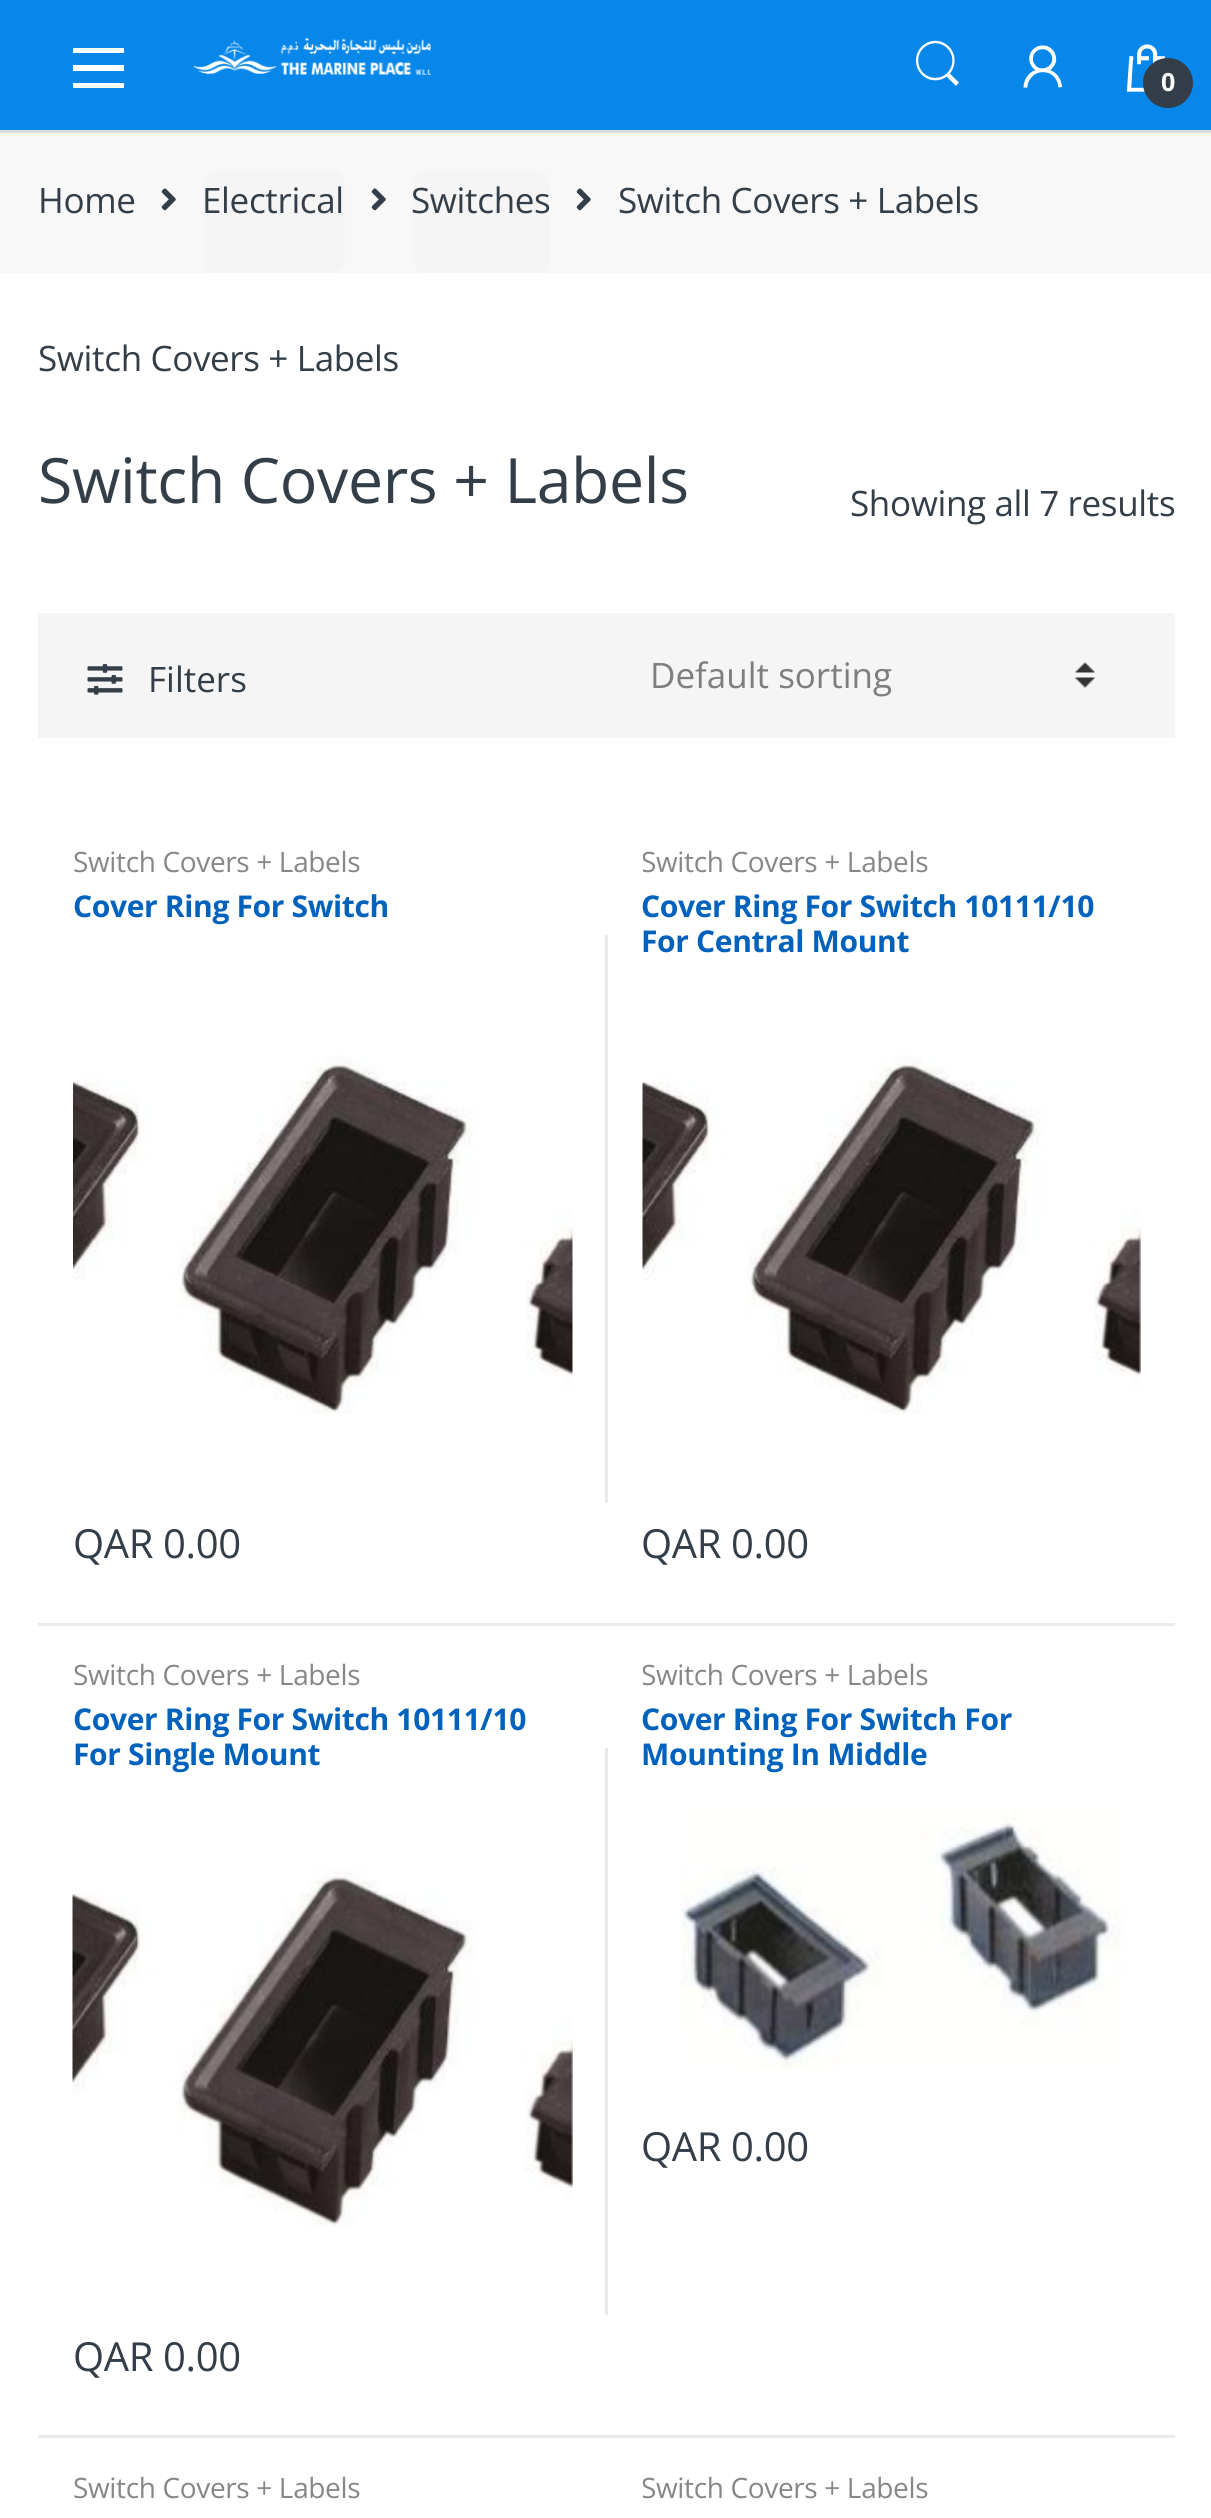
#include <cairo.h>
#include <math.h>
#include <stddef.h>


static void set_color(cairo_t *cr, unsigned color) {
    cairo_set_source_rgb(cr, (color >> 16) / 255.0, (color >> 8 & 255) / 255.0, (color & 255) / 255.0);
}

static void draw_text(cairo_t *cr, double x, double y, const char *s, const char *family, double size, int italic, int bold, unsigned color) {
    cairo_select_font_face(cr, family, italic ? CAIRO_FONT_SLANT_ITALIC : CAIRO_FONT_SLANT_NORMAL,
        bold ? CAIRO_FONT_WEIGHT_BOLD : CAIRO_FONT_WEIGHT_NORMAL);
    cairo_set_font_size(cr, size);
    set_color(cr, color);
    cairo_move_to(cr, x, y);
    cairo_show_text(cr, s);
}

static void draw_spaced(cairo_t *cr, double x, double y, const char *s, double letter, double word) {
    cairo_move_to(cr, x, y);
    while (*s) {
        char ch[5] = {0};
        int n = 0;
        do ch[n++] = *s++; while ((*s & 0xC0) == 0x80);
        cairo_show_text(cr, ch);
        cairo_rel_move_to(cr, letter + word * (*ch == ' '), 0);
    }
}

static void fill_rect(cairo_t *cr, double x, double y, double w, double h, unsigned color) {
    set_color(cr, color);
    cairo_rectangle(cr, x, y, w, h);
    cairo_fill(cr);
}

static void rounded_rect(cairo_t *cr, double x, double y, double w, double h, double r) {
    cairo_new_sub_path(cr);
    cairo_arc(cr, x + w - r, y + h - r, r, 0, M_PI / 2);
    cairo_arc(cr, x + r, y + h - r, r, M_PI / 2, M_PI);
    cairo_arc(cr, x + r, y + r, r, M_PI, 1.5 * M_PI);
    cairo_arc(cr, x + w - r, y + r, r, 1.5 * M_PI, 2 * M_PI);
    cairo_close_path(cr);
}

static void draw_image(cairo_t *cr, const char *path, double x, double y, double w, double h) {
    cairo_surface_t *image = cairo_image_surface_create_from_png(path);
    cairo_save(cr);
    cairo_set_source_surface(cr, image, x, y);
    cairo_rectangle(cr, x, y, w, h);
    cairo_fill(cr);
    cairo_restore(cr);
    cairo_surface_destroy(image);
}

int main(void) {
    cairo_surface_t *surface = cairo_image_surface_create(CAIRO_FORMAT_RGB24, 1211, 2518);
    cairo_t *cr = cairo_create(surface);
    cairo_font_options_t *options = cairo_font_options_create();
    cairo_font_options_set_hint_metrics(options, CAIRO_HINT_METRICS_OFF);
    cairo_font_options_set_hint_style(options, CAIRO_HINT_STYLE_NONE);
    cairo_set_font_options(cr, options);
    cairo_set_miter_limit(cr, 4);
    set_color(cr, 0xFFFFFF);
    cairo_paint(cr);
    fill_rect(cr, 0, 130, 1211, 3, 0xDDDDDD);
    fill_rect(cr, 0, 0, 1211, 130, 0x0787EA);
    set_color(cr, 0xFFFFFF);
    cairo_new_path(cr);
    cairo_move_to(cr, 73, 88);
    cairo_line_to(cr, 73, 83);
    cairo_line_to(cr, 124, 83);
    cairo_line_to(cr, 124, 88);
    cairo_close_path(cr);
    cairo_move_to(cr, 73, 65);
    cairo_line_to(cr, 124, 65);
    cairo_line_to(cr, 124, 71);
    cairo_line_to(cr, 73, 71);
    cairo_close_path(cr);
    cairo_move_to(cr, 73, 48);
    cairo_line_to(cr, 124, 48);
    cairo_line_to(cr, 124, 53);
    cairo_line_to(cr, 73, 53);
    cairo_close_path(cr);
    cairo_fill(cr);
    draw_image(cr, "assets/img1.png", 193, 37, 238, 38);
    draw_image(cr, "assets/img2.png", 916, 40, 43, 46);
    draw_image(cr, "assets/img3.png", 1023, 45, 39, 43);
    draw_image(cr, "assets/img4.png", 1126, 44, 39, 48);
    set_color(cr, 0x333E48);
    cairo_arc(cr, 1168, 83, 25, 0, 2 * M_PI);
    cairo_fill(cr);
    cairo_select_font_face(cr, "Open Sans", CAIRO_FONT_SLANT_NORMAL, CAIRO_FONT_WEIGHT_BOLD);
    cairo_set_font_size(cr, 25);
    set_color(cr, 0xFFFFFF);
    draw_spaced(cr, 1161, 91, "0", -0.35, 0);
    fill_rect(cr, 0, 133, 1211, 140, 0xF8F8F8);
    cairo_select_font_face(cr, "Open Sans", CAIRO_FONT_SLANT_NORMAL, CAIRO_FONT_WEIGHT_NORMAL);
    cairo_set_font_size(cr, 35);
    set_color(cr, 0x333E48);
    draw_spaced(cr, 38, 213, "Home", -0.35, 0);
    draw_image(cr, "assets/img5.png", 161, 188, 15, 23);
    set_color(cr, 0xF5F5F5);
    rounded_rect(cr, 203, 170, 142, 103, 13);
    cairo_fill(cr);
    set_color(cr, 0x333E48);
    draw_spaced(cr, 202, 213, "Electrical", -0.35, 0);
    draw_image(cr, "assets/img5.png", 371, 188, 15, 23);
    set_color(cr, 0xF5F5F5);
    rounded_rect(cr, 413, 170, 137, 103, 13);
    cairo_fill(cr);
    set_color(cr, 0x333E48);
    draw_spaced(cr, 411, 213, "Switches", -0.35, 0);
    draw_image(cr, "assets/img5.png", 576, 188, 15, 23);
    draw_spaced(cr, 618, 213, "Switch Covers + Labels", -0.35, 0);
    draw_spaced(cr, 38, 371, "Switch Covers + Labels", -0.35, 0);
    cairo_set_font_size(cr, 62.5);
    draw_spaced(cr, 38, 503, "Switch Covers + Labels", -0.35, 0);
    cairo_set_font_size(cr, 35);
    draw_spaced(cr, 850, 516, "Showing all 7 results", -0.35, 0);
    fill_rect(cr, 38, 613, 1137, 125, 0xF5F5F5);
    draw_image(cr, "assets/img6.png", 87, 664, 36, 31);
    draw_text(cr, 148, 692, "Filters", "Open Sans", 35, 0, 0, 0x333E48);
    draw_image(cr, "assets/img7.png", 1075, 662, 20, 26);
    draw_text(cr, 650, 688, "Default sorting", "Open Sans", 35, 0, 0, 0x7E7E7E);
    fill_rect(cr, 38, 1623, 1137, 3, 0xEAEAEA);
    cairo_set_font_size(cr, 28);
    set_color(cr, 0x878787);
    draw_spaced(cr, 73, 872, "Switch Covers + Labels", -0.35, 0);
    cairo_select_font_face(cr, "Open Sans", CAIRO_FONT_SLANT_NORMAL, CAIRO_FONT_WEIGHT_BOLD);
    cairo_set_font_size(cr, 30);
    set_color(cr, 0x0062BD);
    draw_spaced(cr, 73, 917, "Cover Ring For Switch", -0.35, 0);
    draw_image(cr, "assets/img8.png", 73, 1055, 500, 359);
    cairo_select_font_face(cr, "Open Sans", CAIRO_FONT_SLANT_NORMAL, CAIRO_FONT_WEIGHT_NORMAL);
    cairo_set_font_size(cr, 40);
    set_color(cr, 0x333E48);
    draw_spaced(cr, 73, 1558, "QAR 0.00", -0.35, 0);
    fill_rect(cr, 605, 935, 3, 568, 0xEAEAEA);
    cairo_save(cr);
    cairo_rectangle(cr, 643, 848, 497, 30);
    cairo_clip(cr);
    cairo_set_font_size(cr, 28);
    set_color(cr, 0x878787);
    draw_spaced(cr, 641, 872, "Switch Covers + Labels", -0.35, 0);
    cairo_restore(cr);
    cairo_select_font_face(cr, "Open Sans", CAIRO_FONT_SLANT_NORMAL, CAIRO_FONT_WEIGHT_BOLD);
    cairo_set_font_size(cr, 30);
    set_color(cr, 0x0062BD);
    draw_spaced(cr, 641, 917, "Cover Ring For Switch 10111/10", -0.35, 0);
    draw_spaced(cr, 641, 952, "For Central Mount", -0.35, 0);
    draw_image(cr, "assets/img9.png", 642, 1055, 499, 359);
    cairo_select_font_face(cr, "Open Sans", CAIRO_FONT_SLANT_NORMAL, CAIRO_FONT_WEIGHT_NORMAL);
    cairo_set_font_size(cr, 40);
    set_color(cr, 0x333E48);
    draw_spaced(cr, 641, 1558, "QAR 0.00", -0.35, 0);
    fill_rect(cr, 38, 2435, 1137, 3, 0xEAEAEA);
    cairo_set_font_size(cr, 28);
    set_color(cr, 0x878787);
    draw_spaced(cr, 73, 1685, "Switch Covers + Labels", -0.35, 0);
    cairo_select_font_face(cr, "Open Sans", CAIRO_FONT_SLANT_NORMAL, CAIRO_FONT_WEIGHT_BOLD);
    cairo_set_font_size(cr, 30);
    set_color(cr, 0x0062BD);
    draw_spaced(cr, 73, 1730, "Cover Ring For Switch 10111/10", -0.35, 0);
    draw_spaced(cr, 73, 1765, "For Single Mount", -0.35, 0);
    draw_image(cr, "assets/img10.png", 72, 1868, 501, 359);
    cairo_select_font_face(cr, "Open Sans", CAIRO_FONT_SLANT_NORMAL, CAIRO_FONT_WEIGHT_NORMAL);
    cairo_set_font_size(cr, 40);
    set_color(cr, 0x333E48);
    draw_spaced(cr, 73, 2371, "QAR 0.00", -0.35, 0);
    fill_rect(cr, 605, 1748, 3, 567, 0xEAEAEA);
    cairo_save(cr);
    cairo_rectangle(cr, 643, 1660, 497, 30);
    cairo_clip(cr);
    cairo_set_font_size(cr, 28);
    set_color(cr, 0x878787);
    draw_spaced(cr, 641, 1685, "Switch Covers + Labels", -0.35, 0);
    cairo_restore(cr);
    cairo_select_font_face(cr, "Open Sans", CAIRO_FONT_SLANT_NORMAL, CAIRO_FONT_WEIGHT_BOLD);
    cairo_set_font_size(cr, 30);
    set_color(cr, 0x0062BD);
    draw_spaced(cr, 641, 1730, "Cover Ring For Switch For", -0.35, 0);
    draw_spaced(cr, 641, 1765, "Mounting In Middle", -0.35, 0);
    draw_image(cr, "assets/img11.png", 681, 1807, 442, 263);
    cairo_select_font_face(cr, "Open Sans", CAIRO_FONT_SLANT_NORMAL, CAIRO_FONT_WEIGHT_NORMAL);
    cairo_set_font_size(cr, 40);
    set_color(cr, 0x333E48);
    draw_spaced(cr, 641, 2161, "QAR 0.00", -0.35, 0);
    cairo_set_font_size(cr, 28);
    set_color(cr, 0x878787);
    draw_spaced(cr, 73, 2498, "Switch Covers + Labels", -0.35, 0);
    cairo_save(cr);
    cairo_rectangle(cr, 643, 2473, 497, 32);
    cairo_clip(cr);
    draw_spaced(cr, 641, 2498, "Switch Covers + Labels", -0.35, 0);
    cairo_restore(cr);
    cairo_surface_write_to_png(surface, "output.png");
    cairo_font_options_destroy(options);
    cairo_destroy(cr);
    cairo_surface_destroy(surface);
    return 0;
}
